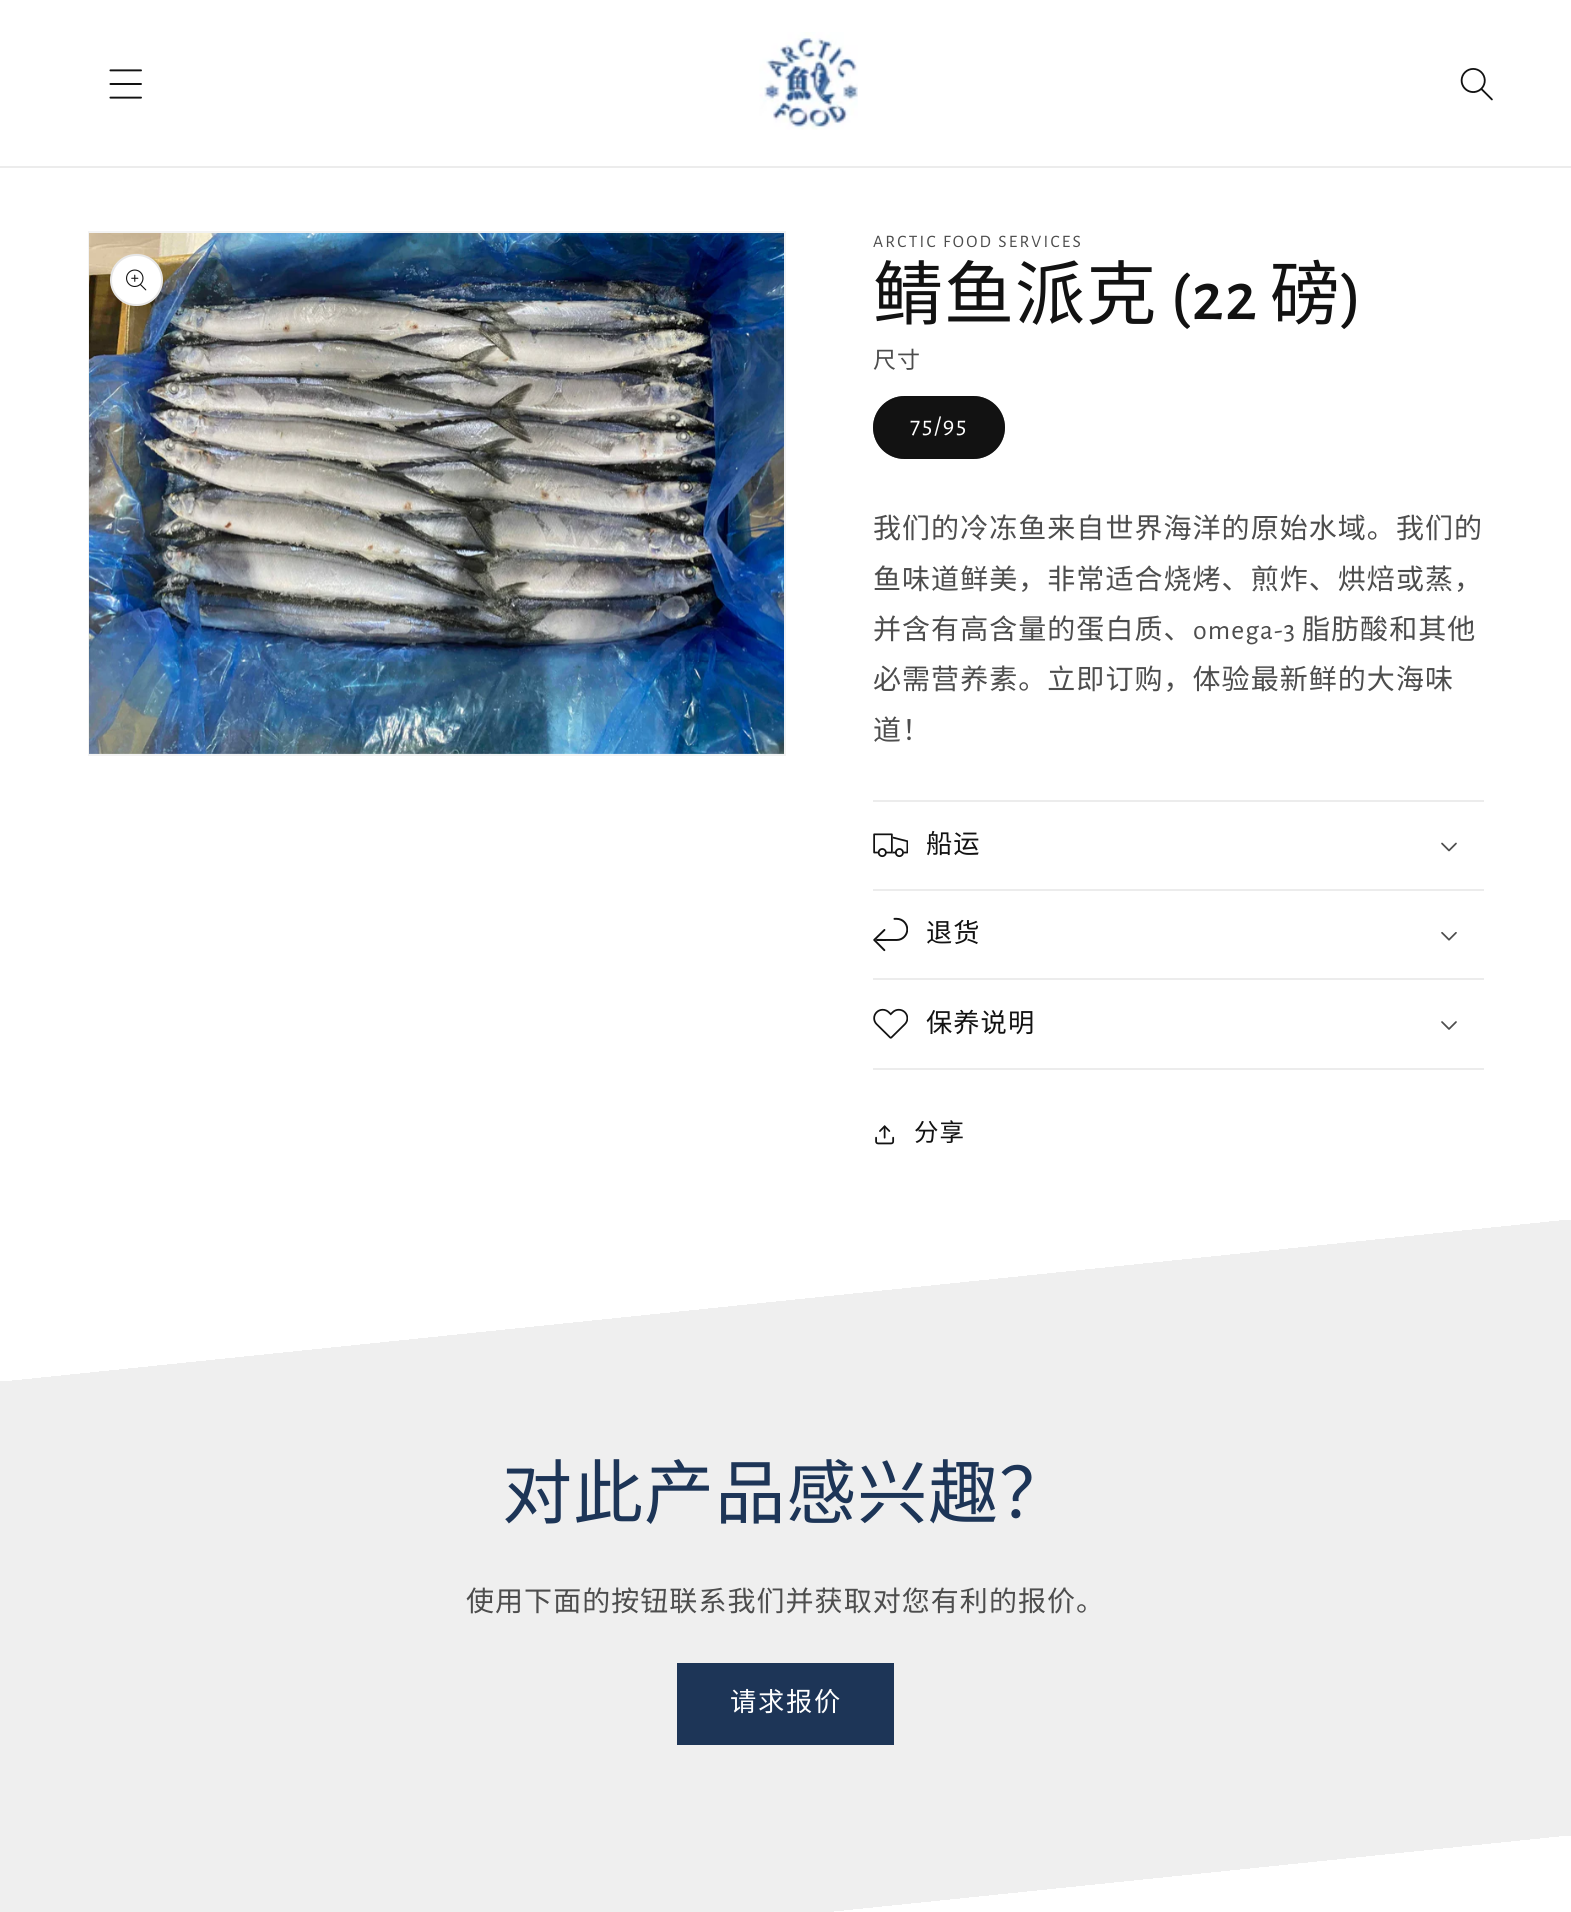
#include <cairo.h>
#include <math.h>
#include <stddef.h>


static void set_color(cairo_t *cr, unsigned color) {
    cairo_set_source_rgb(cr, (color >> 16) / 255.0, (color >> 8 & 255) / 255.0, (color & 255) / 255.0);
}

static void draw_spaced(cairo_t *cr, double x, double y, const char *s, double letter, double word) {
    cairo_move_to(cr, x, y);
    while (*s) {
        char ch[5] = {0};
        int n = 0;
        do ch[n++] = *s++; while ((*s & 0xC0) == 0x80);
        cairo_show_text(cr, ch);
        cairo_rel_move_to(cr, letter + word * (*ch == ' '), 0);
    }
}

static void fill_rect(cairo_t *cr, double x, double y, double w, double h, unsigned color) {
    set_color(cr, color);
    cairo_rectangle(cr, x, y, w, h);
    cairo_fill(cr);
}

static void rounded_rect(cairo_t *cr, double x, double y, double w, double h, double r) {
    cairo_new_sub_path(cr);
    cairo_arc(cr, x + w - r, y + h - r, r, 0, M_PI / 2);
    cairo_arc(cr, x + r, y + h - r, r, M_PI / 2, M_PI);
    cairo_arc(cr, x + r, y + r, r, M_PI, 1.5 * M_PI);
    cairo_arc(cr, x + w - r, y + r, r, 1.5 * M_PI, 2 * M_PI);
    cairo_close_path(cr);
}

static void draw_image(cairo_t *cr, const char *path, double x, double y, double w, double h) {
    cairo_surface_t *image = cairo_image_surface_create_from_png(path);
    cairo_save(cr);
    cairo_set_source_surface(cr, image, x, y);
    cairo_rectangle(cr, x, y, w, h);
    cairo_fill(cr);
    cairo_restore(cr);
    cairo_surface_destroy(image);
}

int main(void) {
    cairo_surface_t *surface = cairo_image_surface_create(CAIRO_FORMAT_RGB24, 1571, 1912);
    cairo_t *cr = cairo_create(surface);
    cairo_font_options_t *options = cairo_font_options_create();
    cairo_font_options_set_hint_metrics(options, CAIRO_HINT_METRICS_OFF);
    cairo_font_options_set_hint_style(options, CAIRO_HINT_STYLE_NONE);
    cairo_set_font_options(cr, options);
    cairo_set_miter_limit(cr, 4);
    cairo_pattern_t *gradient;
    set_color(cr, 0xFFFFFF);
    cairo_paint(cr);
    fill_rect(cr, 0, 166, 1571, 2, 0xECECEC);
    draw_image(cr, "assets/img1.png", 109, 69, 33, 30);
    draw_image(cr, "assets/img2.png", 759, 32, 99, 98);
    draw_image(cr, "assets/img3.png", 1460, 68, 33, 33);
    cairo_rectangle(cr, 89, 232, 696, 523);
    set_color(cr, 0xF3F3F3);
    cairo_stroke(cr);
    draw_image(cr, "assets/img4.png", 89, 233, 695, 521);
    set_color(cr, 0xFFFFFF);
    rounded_rect(cr, 110, 254, 53, 52, 26);
    cairo_fill(cr);
    rounded_rect(cr, 111, 255, 51, 50, 25);
    cairo_set_source_rgba(cr, 0.071, 0.071, 0.071, 0.1);
    cairo_stroke(cr);
    draw_image(cr, "assets/img5.png", 126, 269, 21, 22);
    cairo_select_font_face(cr, "Alegreya Sans", CAIRO_FONT_SLANT_NORMAL, CAIRO_FONT_WEIGHT_NORMAL);
    cairo_set_font_size(cr, 17.5);
    set_color(cr, 0x4D4D4D);
    draw_spaced(cr, 873, 247, "ARCTIC FOOD SERVICES", 2.25, 0);
    cairo_select_font_face(cr, "Noto Sans CJK SC", CAIRO_FONT_SLANT_NORMAL, CAIRO_FONT_WEIGHT_NORMAL);
    cairo_set_font_size(cr, 70);
    set_color(cr, 0x121212);
    draw_spaced(cr, 873, 319, "鲭鱼派克", 1.05, 0);
    cairo_select_font_face(cr, "Alegreya Sans Medium", CAIRO_FONT_SLANT_NORMAL, CAIRO_FONT_WEIGHT_NORMAL);
    draw_spaced(cr, 1170, 319, "(22", 1.05, 0);
    cairo_select_font_face(cr, "Noto Sans CJK SC", CAIRO_FONT_SLANT_NORMAL, CAIRO_FONT_WEIGHT_NORMAL);
    draw_spaced(cr, 1270, 319, "磅", 1.05, 0);
    cairo_select_font_face(cr, "Alegreya Sans Medium", CAIRO_FONT_SLANT_NORMAL, CAIRO_FONT_WEIGHT_NORMAL);
    draw_spaced(cr, 1341, 319, ")", 1.05, 0);
    cairo_select_font_face(cr, "Noto Sans CJK SC", CAIRO_FONT_SLANT_NORMAL, CAIRO_FONT_WEIGHT_NORMAL);
    cairo_set_font_size(cr, 23);
    set_color(cr, 0x4D4D4D);
    draw_spaced(cr, 873, 368, "尺寸", 1, 0);
    set_color(cr, 0x121212);
    rounded_rect(cr, 873, 396, 132, 63, 31.5);
    cairo_fill(cr);
    rounded_rect(cr, 874, 397, 130, 61, 30.5);
    cairo_set_source_rgba(cr, 0.071, 0.071, 0.071, 0.55);
    cairo_stroke(cr);
    cairo_select_font_face(cr, "Alegreya Sans", CAIRO_FONT_SLANT_NORMAL, CAIRO_FONT_WEIGHT_NORMAL);
    cairo_set_font_size(cr, 24.5);
    set_color(cr, 0xFFFFFF);
    draw_spaced(cr, 910, 433, "75/95", 1.75, 0);
    cairo_select_font_face(cr, "Noto Sans CJK SC", CAIRO_FONT_SLANT_NORMAL, CAIRO_FONT_WEIGHT_NORMAL);
    cairo_set_font_size(cr, 28);
    set_color(cr, 0x4D4D4D);
    draw_spaced(cr, 873, 538, "我们的冷冻鱼来自世界海洋的原始水域。我们的", 1.05, 0);
    draw_spaced(cr, 873, 589, "鱼味道鲜美，非常适合烧烤、煎炸、烘焙或蒸，", 1.05, 0);
    draw_spaced(cr, 873, 639, "并含有高含量的蛋白质、", 1.05, 0);
    cairo_select_font_face(cr, "Alegreya Sans", CAIRO_FONT_SLANT_NORMAL, CAIRO_FONT_WEIGHT_NORMAL);
    draw_spaced(cr, 1193, 639, "omega-3", 1.05, 0);
    cairo_select_font_face(cr, "Noto Sans CJK SC", CAIRO_FONT_SLANT_NORMAL, CAIRO_FONT_WEIGHT_NORMAL);
    draw_spaced(cr, 1302, 639, "脂肪酸和其他", 1.05, 0);
    draw_spaced(cr, 873, 689, "必需营养素。立即订购，体验最新鲜的大海味", 1.05, 0);
    draw_spaced(cr, 873, 740, "道！", 1.05, 0);
    fill_rect(cr, 873, 800, 611, 2, 0xECECEC);
    fill_rect(cr, 873, 889, 611, 2, 0xECECEC);
    draw_image(cr, "assets/img6.png", 873, 833, 35, 25);
    cairo_set_font_size(cr, 26.25);
    set_color(cr, 0x121212);
    draw_spaced(cr, 926, 853, "船运", 1.05, 0);
    draw_image(cr, "assets/img7.png", 1441, 842, 16, 10);
    fill_rect(cr, 873, 978, 611, 2, 0xECECEC);
    draw_image(cr, "assets/img8.png", 873, 917, 35, 35);
    set_color(cr, 0x121212);
    draw_spaced(cr, 926, 942, "退货", 1.05, 0);
    draw_image(cr, "assets/img9.png", 1441, 932, 16, 9);
    fill_rect(cr, 873, 1068, 611, 2, 0xECECEC);
    draw_image(cr, "assets/img10.png", 873, 1008, 35, 31);
    set_color(cr, 0x121212);
    draw_spaced(cr, 926, 1032, "保养说明", 1.05, 0);
    draw_image(cr, "assets/img11.png", 1441, 1021, 16, 9);
    draw_image(cr, "assets/img12.png", 875, 1125, 20, 20);
    cairo_set_font_size(cr, 24.5);
    draw_spaced(cr, 914, 1141, "分享", 1.05, 0);
    gradient = cairo_pattern_create_linear(769, 1141, 802, 1460);
    cairo_pattern_add_color_stop_rgba(gradient, 0.5, 1, 1, 1, 1);
    cairo_pattern_add_color_stop_rgba(gradient, 0.5, 0.937, 0.937, 0.937, 1);
    cairo_set_source(cr, gradient);
    cairo_pattern_destroy(gradient);
    cairo_rectangle(cr, 12, 1220, 1559, 161);
    cairo_fill(cr);
    fill_rect(cr, 0, 1381, 1571, 455, 0xEFEFEF);
    cairo_set_font_size(cr, 70);
    set_color(cr, 0x1D3557);
    draw_spaced(cr, 502, 1518, "对此产品感兴趣？", 1.05, 0);
    cairo_set_font_size(cr, 28);
    set_color(cr, 0x4D4D4D);
    draw_spaced(cr, 466, 1611, "使用下面的按钮联系我们并获取对您有利的报价。", 1.05, 0);
    fill_rect(cr, 677, 1663, 217, 82, 0x1D3557);
    cairo_set_font_size(cr, 26.25);
    set_color(cr, 0xFFFFFF);
    draw_spaced(cr, 730, 1711, "请求报价", 1.75, 0);
    gradient = cairo_pattern_create_linear(769, 1757, 802, 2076);
    cairo_pattern_add_color_stop_rgba(gradient, 0.5, 0.937, 0.937, 0.937, 1);
    cairo_pattern_add_color_stop_rgba(gradient, 0.5, 1, 1, 1, 1);
    cairo_set_source(cr, gradient);
    cairo_pattern_destroy(gradient);
    cairo_rectangle(cr, 0, 1836, 1559, 76);
    cairo_fill(cr);
    cairo_surface_write_to_png(surface, "output.png");
    cairo_font_options_destroy(options);
    cairo_destroy(cr);
    cairo_surface_destroy(surface);
    return 0;
}
